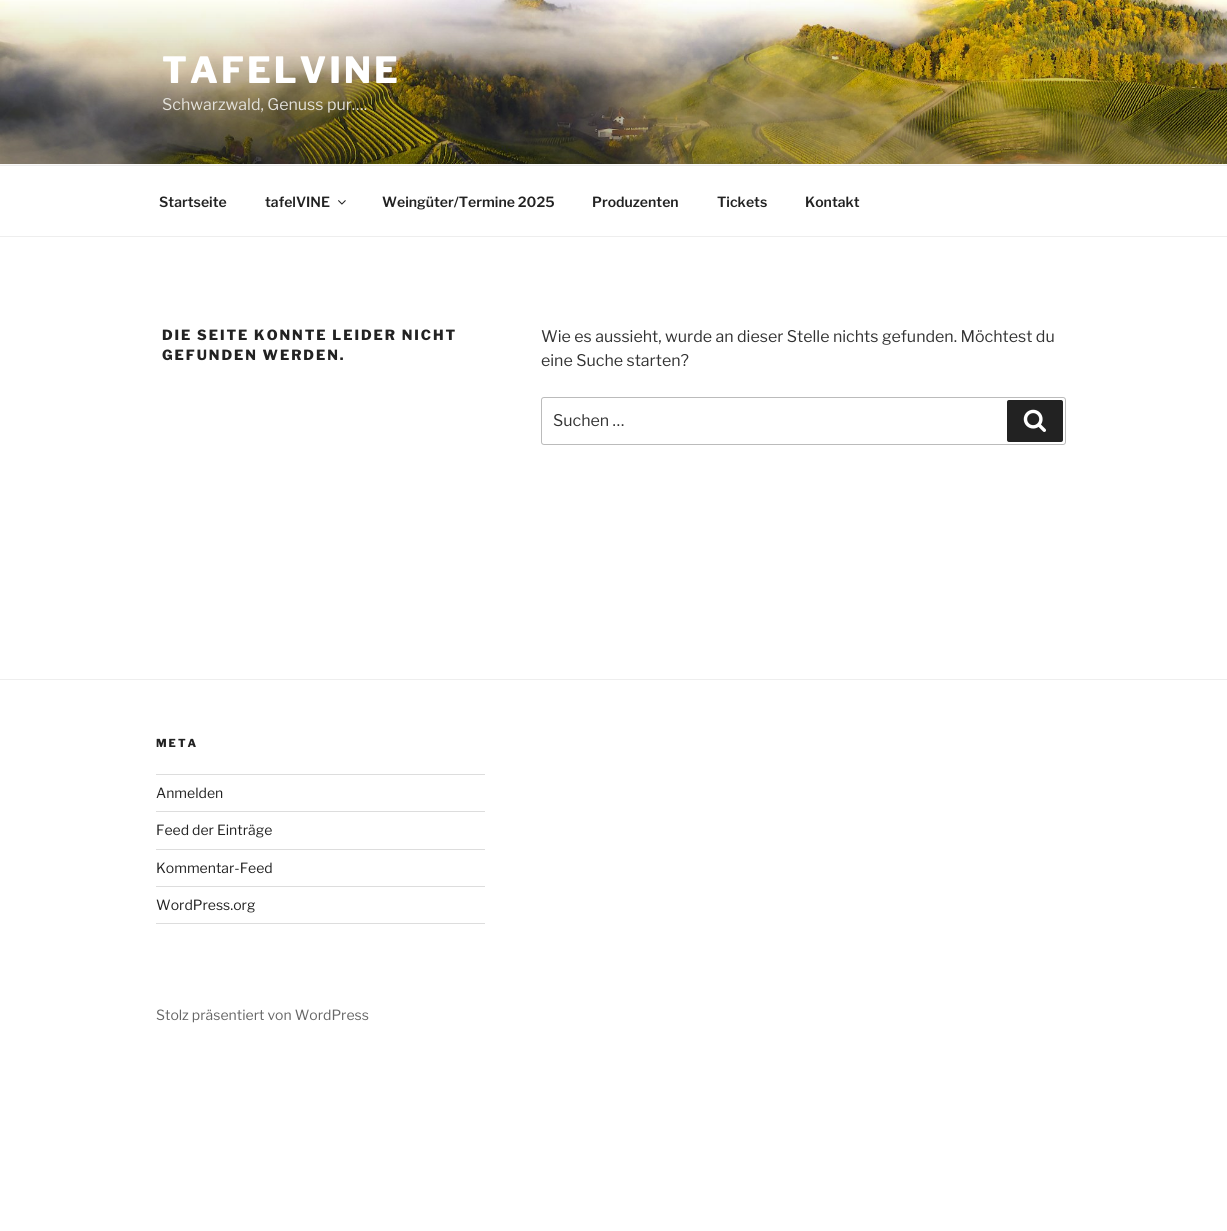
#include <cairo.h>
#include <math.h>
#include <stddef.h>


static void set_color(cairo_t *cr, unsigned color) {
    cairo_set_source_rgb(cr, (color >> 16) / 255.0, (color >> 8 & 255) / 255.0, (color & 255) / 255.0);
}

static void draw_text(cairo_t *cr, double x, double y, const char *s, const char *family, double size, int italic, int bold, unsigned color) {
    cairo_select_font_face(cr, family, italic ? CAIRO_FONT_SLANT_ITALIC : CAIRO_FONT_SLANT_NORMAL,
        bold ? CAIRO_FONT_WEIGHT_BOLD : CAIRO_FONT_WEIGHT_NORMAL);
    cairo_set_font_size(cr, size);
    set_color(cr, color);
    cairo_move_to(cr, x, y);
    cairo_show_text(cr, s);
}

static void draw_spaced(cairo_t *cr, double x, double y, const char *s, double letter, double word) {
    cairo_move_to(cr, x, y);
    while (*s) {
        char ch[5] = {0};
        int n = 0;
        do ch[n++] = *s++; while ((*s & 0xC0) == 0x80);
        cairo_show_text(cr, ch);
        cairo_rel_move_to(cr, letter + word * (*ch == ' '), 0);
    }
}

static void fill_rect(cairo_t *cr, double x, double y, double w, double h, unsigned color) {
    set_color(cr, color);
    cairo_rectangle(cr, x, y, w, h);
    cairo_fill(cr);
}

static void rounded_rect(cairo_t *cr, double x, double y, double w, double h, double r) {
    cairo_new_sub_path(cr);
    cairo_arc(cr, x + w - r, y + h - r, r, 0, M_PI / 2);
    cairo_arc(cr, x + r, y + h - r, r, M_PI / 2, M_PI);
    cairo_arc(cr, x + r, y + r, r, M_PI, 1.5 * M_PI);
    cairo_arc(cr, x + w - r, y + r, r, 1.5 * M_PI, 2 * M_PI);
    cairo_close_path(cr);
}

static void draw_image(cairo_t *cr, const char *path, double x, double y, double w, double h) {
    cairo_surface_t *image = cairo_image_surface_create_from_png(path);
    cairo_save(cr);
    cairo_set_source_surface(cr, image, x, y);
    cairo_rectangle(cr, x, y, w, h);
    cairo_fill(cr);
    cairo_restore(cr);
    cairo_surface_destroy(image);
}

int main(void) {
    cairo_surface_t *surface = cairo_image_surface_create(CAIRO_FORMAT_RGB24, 1227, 1231);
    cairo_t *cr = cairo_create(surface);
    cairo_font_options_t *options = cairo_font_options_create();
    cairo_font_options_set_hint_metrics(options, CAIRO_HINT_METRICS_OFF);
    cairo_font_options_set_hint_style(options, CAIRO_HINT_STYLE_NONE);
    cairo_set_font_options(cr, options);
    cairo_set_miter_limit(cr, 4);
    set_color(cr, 0xFFFFFF);
    cairo_paint(cr);
    fill_rect(cr, 0, 164, 1227, 1, 0xFAFAFA);
    draw_image(cr, "assets/img1.png", 0, 0, 1227, 164);
    cairo_select_font_face(cr, "Libre Franklin Thin", CAIRO_FONT_SLANT_NORMAL, CAIRO_FONT_WEIGHT_NORMAL);
    cairo_set_font_size(cr, 36);
    set_color(cr, 0xFFFFFF);
    draw_spaced(cr, 162, 83, "TAFELVINE", 2.9, 0);
    draw_text(cr, 162, 110, "Schwarzwald, Genuss pur….", "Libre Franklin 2 Thin", 16, 0, 0, 0xE3E1DA);
    fill_rect(cr, 0, 165, 1227, 1, 0xEEEEEE);
    fill_rect(cr, 0, 236, 1227, 1, 0xEEEEEE);
    draw_text(cr, 159, 207, "Startseite", "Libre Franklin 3 Thin", 14, 0, 0, 0x222222);
    draw_text(cr, 265, 207, "tafelVINE", "Libre Franklin 3 Thin", 14, 0, 0, 0x222222);
    draw_image(cr, "assets/img2.png", 338, 200, 8, 5);
    draw_text(cr, 382, 207, "Weingüter/Termine 2025", "Libre Franklin 3 Thin", 14, 0, 0, 0x222222);
    draw_text(cr, 592, 207, "Produzenten", "Libre Franklin 3 Thin", 14, 0, 0, 0x222222);
    draw_text(cr, 717, 207, "Tickets", "Libre Franklin 3 Thin", 14, 0, 0, 0x222222);
    draw_text(cr, 805, 207, "Kontakt", "Libre Franklin 3 Thin", 14, 0, 0, 0x222222);
    cairo_select_font_face(cr, "Libre Franklin Thin", CAIRO_FONT_SLANT_NORMAL, CAIRO_FONT_WEIGHT_NORMAL);
    draw_spaced(cr, 162, 340, "DIE SEITE KONNTE LEIDER NICHT", 1.95, 0);
    draw_spaced(cr, 162, 360, "GEFUNDEN WERDEN.", 1.95, 0);
    draw_text(cr, 541, 342, "Wie es aussieht, wurde an dieser Stelle nichts gefunden. Möchtest du", "Libre Franklin 2 Thin", 16, 0, 0, 0x333333);
    draw_text(cr, 541, 366, "eine Suche starten?", "Libre Franklin 2 Thin", 16, 0, 0, 0x333333);
    rounded_rect(cr, 541.5, 397.5, 524, 47, 2.5);
    set_color(cr, 0xBBBBBB);
    cairo_set_line_width(cr, 1);
    cairo_stroke(cr);
    draw_text(cr, 553, 426, "Suchen …", "Libre Franklin 2 Thin", 16, 0, 0, 0x333333);
    set_color(cr, 0x222222);
    rounded_rect(cr, 1007, 400, 56, 42, 2);
    cairo_fill(cr);
    draw_image(cr, "assets/img3.png", 1023, 409, 23, 23);
    fill_rect(cr, 0, 679, 1227, 1, 0xEEEEEE);
    cairo_select_font_face(cr, "Libre Franklin Thin", CAIRO_FONT_SLANT_NORMAL, CAIRO_FONT_WEIGHT_NORMAL);
    cairo_set_font_size(cr, 11);
    set_color(cr, 0x222222);
    draw_spaced(cr, 156, 747, "META", 2, 0);
    fill_rect(cr, 156, 774, 329, 1, 0xDDDDDD);
    fill_rect(cr, 156, 811, 329, 1, 0xDDDDDD);
    draw_text(cr, 156, 798, "Anmelden", "Libre Franklin 2 Thin", 14, 0, 0, 0x222222);
    fill_rect(cr, 156, 849, 329, 1, 0xDDDDDD);
    draw_text(cr, 156, 835, "Feed der Einträge", "Libre Franklin 2 Thin", 14, 0, 0, 0x222222);
    fill_rect(cr, 156, 886, 329, 1, 0xDDDDDD);
    draw_text(cr, 156, 873, "Kommentar-Feed", "Libre Franklin 2 Thin", 14, 0, 0, 0x222222);
    fill_rect(cr, 156, 923, 329, 1, 0xDDDDDD);
    draw_text(cr, 156, 910, "WordPress.org", "Libre Franklin 2 Thin", 14, 0, 0, 0x222222);
    draw_text(cr, 156, 1020, "Stolz präsentiert von WordPress", "Libre Franklin 2 Thin", 14, 0, 0, 0x666666);
    cairo_surface_write_to_png(surface, "output.png");
    cairo_font_options_destroy(options);
    cairo_destroy(cr);
    cairo_surface_destroy(surface);
    return 0;
}
